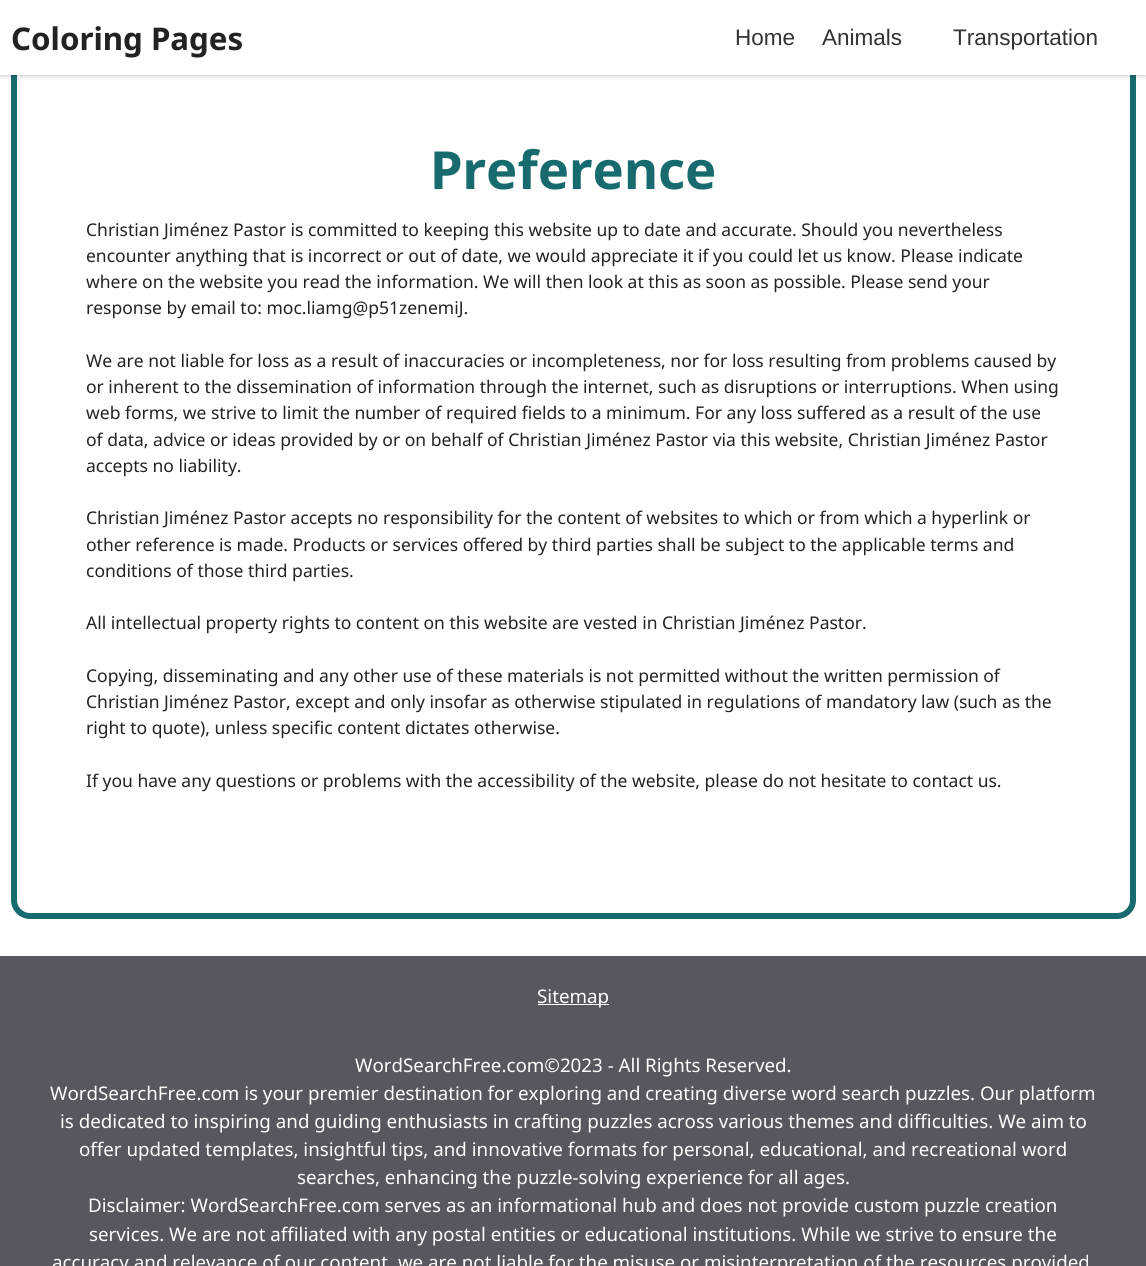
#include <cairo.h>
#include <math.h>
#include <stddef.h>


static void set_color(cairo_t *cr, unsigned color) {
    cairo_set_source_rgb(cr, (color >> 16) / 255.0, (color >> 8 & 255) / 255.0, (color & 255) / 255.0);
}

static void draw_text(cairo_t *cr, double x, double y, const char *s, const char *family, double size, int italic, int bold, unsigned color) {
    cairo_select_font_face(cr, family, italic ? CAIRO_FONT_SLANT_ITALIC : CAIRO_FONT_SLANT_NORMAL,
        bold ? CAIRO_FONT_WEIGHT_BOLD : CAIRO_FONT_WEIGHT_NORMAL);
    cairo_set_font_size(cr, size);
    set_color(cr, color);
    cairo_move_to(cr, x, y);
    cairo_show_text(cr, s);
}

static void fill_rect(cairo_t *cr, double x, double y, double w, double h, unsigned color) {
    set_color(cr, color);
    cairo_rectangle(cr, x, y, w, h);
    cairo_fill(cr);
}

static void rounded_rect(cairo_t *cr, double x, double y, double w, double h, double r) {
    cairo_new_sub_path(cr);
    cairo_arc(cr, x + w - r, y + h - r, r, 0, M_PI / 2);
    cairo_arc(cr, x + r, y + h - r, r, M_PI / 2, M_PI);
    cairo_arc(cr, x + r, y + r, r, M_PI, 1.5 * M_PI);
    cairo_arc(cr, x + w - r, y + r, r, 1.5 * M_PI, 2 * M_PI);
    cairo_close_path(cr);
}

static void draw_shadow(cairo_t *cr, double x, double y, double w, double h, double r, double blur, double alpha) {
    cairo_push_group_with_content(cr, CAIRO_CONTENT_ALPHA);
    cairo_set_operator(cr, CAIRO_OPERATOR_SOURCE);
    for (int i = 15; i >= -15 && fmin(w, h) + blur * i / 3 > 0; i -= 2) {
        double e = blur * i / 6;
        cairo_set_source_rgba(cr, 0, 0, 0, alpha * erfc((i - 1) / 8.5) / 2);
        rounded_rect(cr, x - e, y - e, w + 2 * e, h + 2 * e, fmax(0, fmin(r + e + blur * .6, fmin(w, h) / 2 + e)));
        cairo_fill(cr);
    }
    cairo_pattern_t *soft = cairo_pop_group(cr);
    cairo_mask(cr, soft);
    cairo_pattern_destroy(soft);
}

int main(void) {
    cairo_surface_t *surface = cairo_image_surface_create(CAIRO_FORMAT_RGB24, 1146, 1266);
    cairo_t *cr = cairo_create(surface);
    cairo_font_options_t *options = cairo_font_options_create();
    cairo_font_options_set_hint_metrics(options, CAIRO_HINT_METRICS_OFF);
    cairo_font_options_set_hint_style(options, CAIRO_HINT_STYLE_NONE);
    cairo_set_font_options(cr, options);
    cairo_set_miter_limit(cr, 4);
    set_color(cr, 0xFFFFFF);
    cairo_paint(cr);
    rounded_rect(cr, 14, 41, 1119, 875, 16);
    set_color(cr, 0x176A6D);
    cairo_set_line_width(cr, 6);
    cairo_stroke(cr);
    set_color(cr, 0x0D1A2C);
    draw_shadow(cr, 0, 1, 1146, 75, 0, 2.5, 0.23);
    fill_rect(cr, 0, 0, 1146, 75, 0xFFFFFF);
    draw_text(cr, 11, 50, "Coloring Pages", "Noto Sans", 31.25, 0, 1, 0x222222);
    draw_text(cr, 735, 45, "Home", "Liberation Sans", 22.5, 0, 0, 0x333333);
    draw_text(cr, 822, 45, "Animals", "Liberation Sans", 22.5, 0, 0, 0x333333);
    draw_text(cr, 953, 45, "Transportation", "Liberation Sans", 22.5, 0, 0, 0x333333);
    draw_text(cr, 430, 189, "Preference", "Noto Sans", 52.5, 0, 1, 0x176A6D);
    draw_text(cr, 86, 236, "Christian Jiménez Pastor is committed to keeping this website up to date and accurate. Should you nevertheless", "Noto Sans", 17.5, 0, 0, 0x222222);
    draw_text(cr, 86, 262, "encounter anything that is incorrect or out of date, we would appreciate it if you could let us know. Please indicate", "Noto Sans", 17.5, 0, 0, 0x222222);
    draw_text(cr, 86, 288, "where on the website you read the information. We will then look at this as soon as possible. Please send your", "Noto Sans", 17.5, 0, 0, 0x222222);
    draw_text(cr, 86, 314, "response by email to: moc.liamg@p51zenemiJ.", "Noto Sans", 17.5, 0, 0, 0x222222);
    draw_text(cr, 86, 367, "We are not liable for loss as a result of inaccuracies or incompleteness, nor for loss resulting from problems caused by", "Noto Sans", 17.5, 0, 0, 0x222222);
    draw_text(cr, 86, 393, "or inherent to the dissemination of information through the internet, such as disruptions or interruptions. When using", "Noto Sans", 17.5, 0, 0, 0x222222);
    draw_text(cr, 86, 419, "web forms, we strive to limit the number of required fields to a minimum. For any loss suffered as a result of the use", "Noto Sans", 17.5, 0, 0, 0x222222);
    draw_text(cr, 86, 446, "of data, advice or ideas provided by or on behalf of Christian Jiménez Pastor via this website, Christian Jiménez Pastor", "Noto Sans", 17.5, 0, 0, 0x222222);
    draw_text(cr, 86, 472, "accepts no liability.", "Noto Sans", 17.5, 0, 0, 0x222222);
    draw_text(cr, 86, 524, "Christian Jiménez Pastor accepts no responsibility for the content of websites to which or from which a hyperlink or", "Noto Sans", 17.5, 0, 0, 0x222222);
    draw_text(cr, 86, 551, "other reference is made. Products or services offered by third parties shall be subject to the applicable terms and", "Noto Sans", 17.5, 0, 0, 0x222222);
    draw_text(cr, 86, 577, "conditions of those third parties.", "Noto Sans", 17.5, 0, 0, 0x222222);
    draw_text(cr, 86, 629, "All intellectual property rights to content on this website are vested in Christian Jiménez Pastor.", "Noto Sans", 17.5, 0, 0, 0x222222);
    draw_text(cr, 86, 682, "Copying, disseminating and any other use of these materials is not permitted without the written permission of", "Noto Sans", 17.5, 0, 0, 0x222222);
    draw_text(cr, 86, 708, "Christian Jiménez Pastor, except and only insofar as otherwise stipulated in regulations of mandatory law (such as the", "Noto Sans", 17.5, 0, 0, 0x222222);
    draw_text(cr, 86, 734, "right to quote), unless specific content dictates otherwise.", "Noto Sans", 17.5, 0, 0, 0x222222);
    draw_text(cr, 86, 787, "If you have any questions or problems with the accessibility of the website, please do not hesitate to contact us.", "Noto Sans", 17.5, 0, 0, 0x222222);
    fill_rect(cr, 0, 956, 1146, 310, 0x575760);
    fill_rect(cr, 538, 1004, 71, 1, 0xFFFFFF);
    draw_text(cr, 537, 1003, "Sitemap", "Noto Sans", 18.75, 0, 0, 0xFFFFFF);
    draw_text(cr, 355, 1072, "WordSearchFree.com©2023 - All Rights Reserved.", "Noto Sans", 18.75, 0, 0, 0xFFFFFF);
    draw_text(cr, 50, 1100, "WordSearchFree.com is your premier destination for exploring and creating diverse word search puzzles. Our platform", "Noto Sans", 18.75, 0, 0, 0xFFFFFF);
    draw_text(cr, 60, 1128, "is dedicated to inspiring and guiding enthusiasts in crafting puzzles across various themes and difficulties. We aim to", "Noto Sans", 18.75, 0, 0, 0xFFFFFF);
    draw_text(cr, 79, 1156, "offer updated templates, insightful tips, and innovative formats for personal, educational, and recreational word", "Noto Sans", 18.75, 0, 0, 0xFFFFFF);
    draw_text(cr, 297, 1184, "searches, enhancing the puzzle-solving experience for all ages.", "Noto Sans", 18.75, 0, 0, 0xFFFFFF);
    draw_text(cr, 88, 1212, "Disclaimer: WordSearchFree.com serves as an informational hub and does not provide custom puzzle creation", "Noto Sans", 18.75, 0, 0, 0xFFFFFF);
    draw_text(cr, 89, 1241, "services. We are not affiliated with any postal entities or educational institutions. While we strive to ensure the", "Noto Sans", 18.75, 0, 0, 0xFFFFFF);
    draw_text(cr, 52, 1269, "accuracy and relevance of our content, we are not liable for the misuse or misinterpretation of the resources provided", "Noto Sans", 18.75, 0, 0, 0xFFFFFF);
    cairo_surface_write_to_png(surface, "output.png");
    cairo_font_options_destroy(options);
    cairo_destroy(cr);
    cairo_surface_destroy(surface);
    return 0;
}
